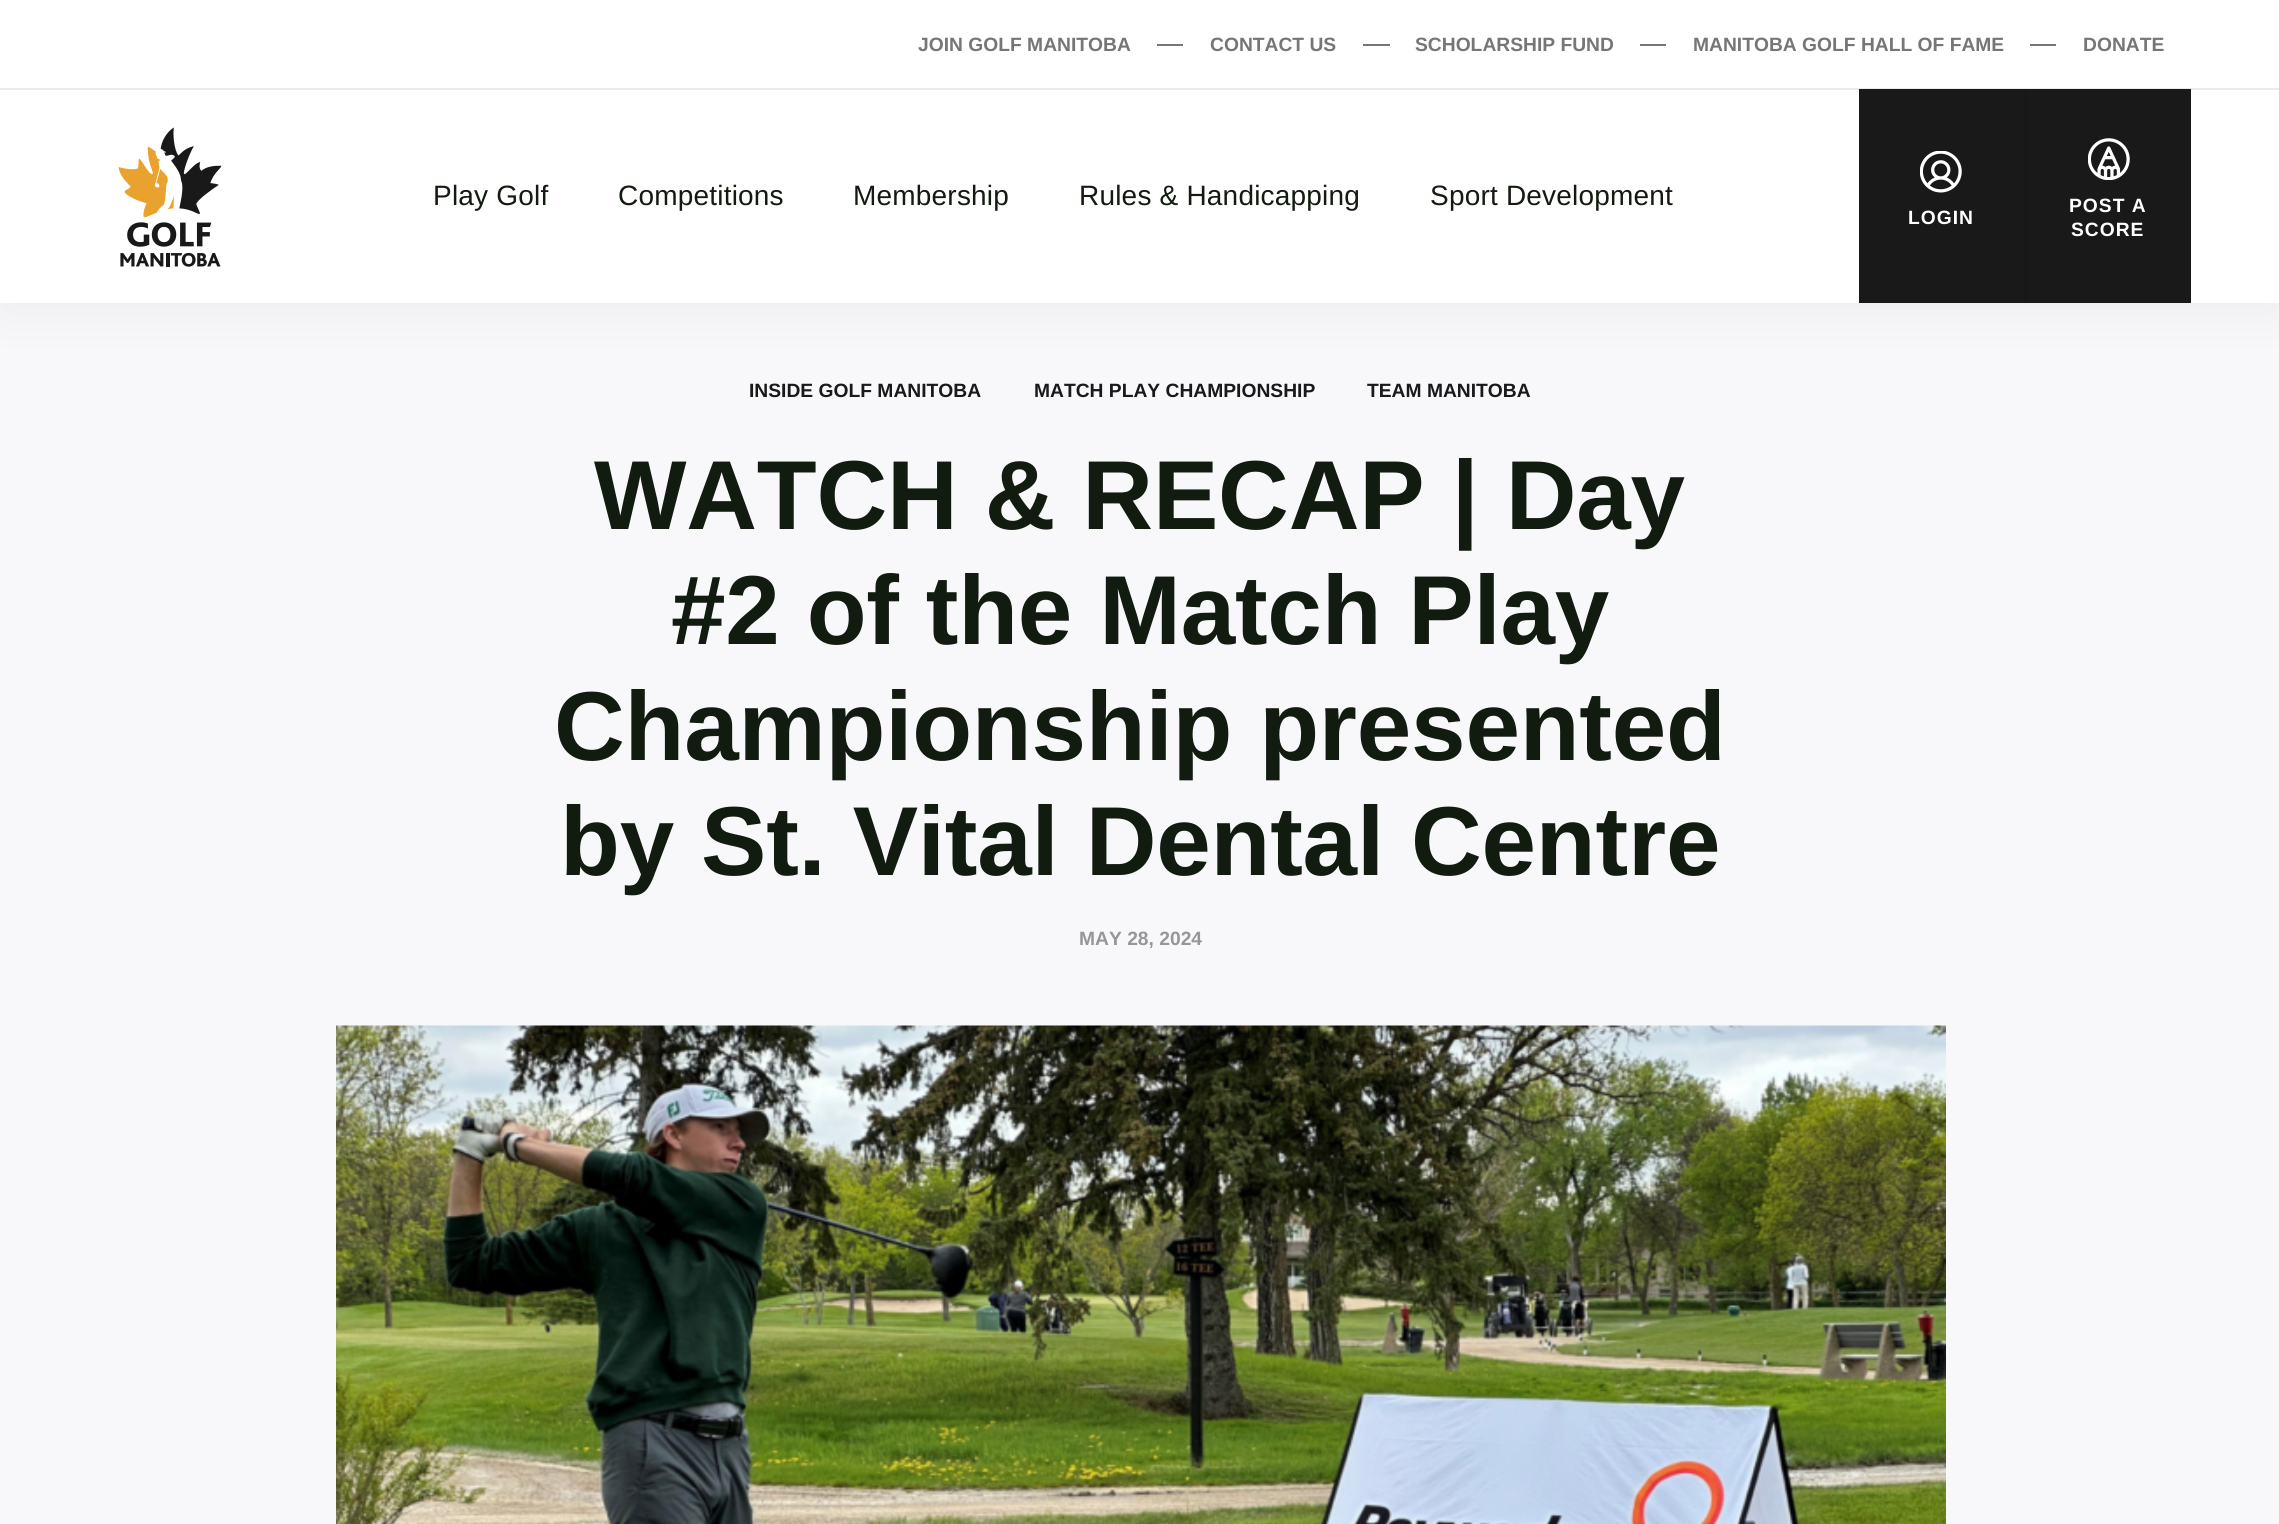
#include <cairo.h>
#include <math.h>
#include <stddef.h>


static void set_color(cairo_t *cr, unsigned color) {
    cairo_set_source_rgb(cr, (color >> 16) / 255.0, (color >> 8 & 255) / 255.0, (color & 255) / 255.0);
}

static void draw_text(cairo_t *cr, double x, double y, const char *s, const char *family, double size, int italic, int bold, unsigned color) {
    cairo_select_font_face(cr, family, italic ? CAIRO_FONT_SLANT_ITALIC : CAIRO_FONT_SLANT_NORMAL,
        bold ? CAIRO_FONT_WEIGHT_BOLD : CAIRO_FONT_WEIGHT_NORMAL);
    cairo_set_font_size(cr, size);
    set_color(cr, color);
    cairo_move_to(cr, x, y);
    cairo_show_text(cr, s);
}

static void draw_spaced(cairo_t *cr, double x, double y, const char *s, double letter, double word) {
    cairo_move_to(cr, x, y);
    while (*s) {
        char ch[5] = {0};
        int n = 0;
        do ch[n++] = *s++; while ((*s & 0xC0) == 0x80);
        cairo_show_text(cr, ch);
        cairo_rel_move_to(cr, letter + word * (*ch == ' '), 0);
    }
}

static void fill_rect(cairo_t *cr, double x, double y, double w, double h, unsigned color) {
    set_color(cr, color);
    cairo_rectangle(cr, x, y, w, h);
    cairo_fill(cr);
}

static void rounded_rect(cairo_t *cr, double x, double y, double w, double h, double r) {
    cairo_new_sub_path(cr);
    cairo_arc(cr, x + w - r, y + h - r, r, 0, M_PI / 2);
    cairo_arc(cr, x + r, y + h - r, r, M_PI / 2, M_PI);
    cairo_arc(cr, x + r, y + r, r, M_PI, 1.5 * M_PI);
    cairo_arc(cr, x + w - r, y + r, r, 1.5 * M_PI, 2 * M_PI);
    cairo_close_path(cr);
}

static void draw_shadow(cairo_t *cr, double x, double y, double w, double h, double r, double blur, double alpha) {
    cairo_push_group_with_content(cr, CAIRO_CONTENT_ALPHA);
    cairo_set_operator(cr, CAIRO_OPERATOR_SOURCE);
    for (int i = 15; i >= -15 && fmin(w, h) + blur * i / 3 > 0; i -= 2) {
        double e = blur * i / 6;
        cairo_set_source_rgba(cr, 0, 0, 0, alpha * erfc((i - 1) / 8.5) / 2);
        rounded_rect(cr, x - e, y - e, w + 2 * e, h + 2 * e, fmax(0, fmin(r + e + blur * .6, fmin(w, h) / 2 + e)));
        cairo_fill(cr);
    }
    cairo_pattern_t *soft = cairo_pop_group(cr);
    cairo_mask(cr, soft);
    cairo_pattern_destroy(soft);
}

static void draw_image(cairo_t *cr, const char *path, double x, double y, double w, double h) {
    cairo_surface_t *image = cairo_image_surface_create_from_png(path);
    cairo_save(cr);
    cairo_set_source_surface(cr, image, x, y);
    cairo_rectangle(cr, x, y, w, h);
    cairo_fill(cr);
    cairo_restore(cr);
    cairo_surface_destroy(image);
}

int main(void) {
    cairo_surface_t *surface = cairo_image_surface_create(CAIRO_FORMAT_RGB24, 2279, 1524);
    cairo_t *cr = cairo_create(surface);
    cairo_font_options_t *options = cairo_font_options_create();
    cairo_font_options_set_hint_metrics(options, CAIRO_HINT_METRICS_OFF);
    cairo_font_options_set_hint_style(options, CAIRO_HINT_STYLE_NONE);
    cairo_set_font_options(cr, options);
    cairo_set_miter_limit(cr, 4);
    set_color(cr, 0xF8F8FB);
    cairo_paint(cr);
    set_color(cr, 0x000000);
    draw_shadow(cr, 0, 96, 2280, 214, 0, 26, 0.05);
    fill_rect(cr, 0, 0, 2279, 88, 0xFFFFFF);
    fill_rect(cr, 0, 88, 2279, 2, 0xEAEAEA);
    draw_text(cr, 918, 51, "JOIN GOLF MANITOBA", "Liberation Sans", 19.25, 0, 1, 0x767676);
    fill_rect(cr, 1157, 44, 26, 2, 0x767676);
    draw_text(cr, 1210, 51, "CONTACT US", "Liberation Sans", 19.25, 0, 1, 0x767676);
    fill_rect(cr, 1363, 44, 27, 2, 0x767676);
    draw_text(cr, 1415, 51, "SCHOLARSHIP FUND", "Liberation Sans", 19.25, 0, 1, 0x767676);
    fill_rect(cr, 1640, 44, 26, 2, 0x767676);
    draw_text(cr, 1693, 51, "MANITOBA GOLF HALL OF FAME", "Liberation Sans", 19.25, 0, 1, 0x767676);
    fill_rect(cr, 2030, 44, 26, 2, 0x767676);
    draw_text(cr, 2083, 51, "DONATE", "Liberation Sans", 19.25, 0, 1, 0x767676);
    fill_rect(cr, 0, 90, 2279, 213, 0xFFFFFF);
    draw_image(cr, "assets/img1.png", 118, 127, 104, 140);
    cairo_select_font_face(cr, "Liberation Sans", CAIRO_FONT_SLANT_NORMAL, CAIRO_FONT_WEIGHT_NORMAL);
    cairo_set_font_size(cr, 28);
    set_color(cr, 0x121B10);
    draw_spaced(cr, 433, 205, "Play Golf", 0.2, 0);
    draw_spaced(cr, 618, 205, "Competitions", 0.2, 0);
    draw_spaced(cr, 853, 205, "Membership", 0.2, 0);
    draw_spaced(cr, 1079, 205, "Rules & Handicapping", 0.2, 0);
    draw_spaced(cr, 1430, 205, "Sport Development", 0.2, 0);
    fill_rect(cr, 1859, 89, 166, 214, 0x1A1919);
    draw_image(cr, "assets/img2.png", 1920, 151, 42, 42);
    cairo_select_font_face(cr, "Liberation Sans", CAIRO_FONT_SLANT_NORMAL, CAIRO_FONT_WEIGHT_BOLD);
    cairo_set_font_size(cr, 19.25);
    set_color(cr, 0xFFFFFF);
    draw_spaced(cr, 1908, 224, "LOGIN", 1, 0);
    fill_rect(cr, 2027, 89, 164, 214, 0x1A1919);
    fill_rect(cr, 2025, 89, 2, 214, 0x171717);
    draw_image(cr, "assets/img3.png", 2088, 138, 42, 42);
    set_color(cr, 0xFFFFFF);
    draw_spaced(cr, 2069, 212, "POST A", 1, 0);
    draw_spaced(cr, 2071, 236, "SCORE", 1, 0);
    draw_text(cr, 749, 397, "INSIDE GOLF MANITOBA", "Liberation Sans", 19.25, 0, 1, 0x1A1919);
    draw_text(cr, 1034, 397, "MATCH PLAY CHAMPIONSHIP", "Liberation Sans", 19.25, 0, 1, 0x1A1919);
    draw_text(cr, 1367, 397, "TEAM MANITOBA", "Liberation Sans", 19.25, 0, 1, 0x1A1919);
    cairo_set_font_size(cr, 98);
    set_color(cr, 0x121B10);
    draw_spaced(cr, 594, 529, "WATCH & RECAP | Day", -0.2, 0);
    draw_spaced(cr, 671, 644, "#2 of the Match Play", -0.2, 0);
    draw_spaced(cr, 554, 760, "Championship presented", -0.2, 0);
    draw_spaced(cr, 560, 875, "by St. Vital Dental Centre", -0.2, 0);
    draw_text(cr, 1079, 945, "MAY 28, 2024", "Liberation Sans", 19.25, 0, 1, 0x969696);
    draw_image(cr, "assets/img4.png", 336, 1025, 1610, 499);
    cairo_surface_write_to_png(surface, "output.png");
    cairo_font_options_destroy(options);
    cairo_destroy(cr);
    cairo_surface_destroy(surface);
    return 0;
}
